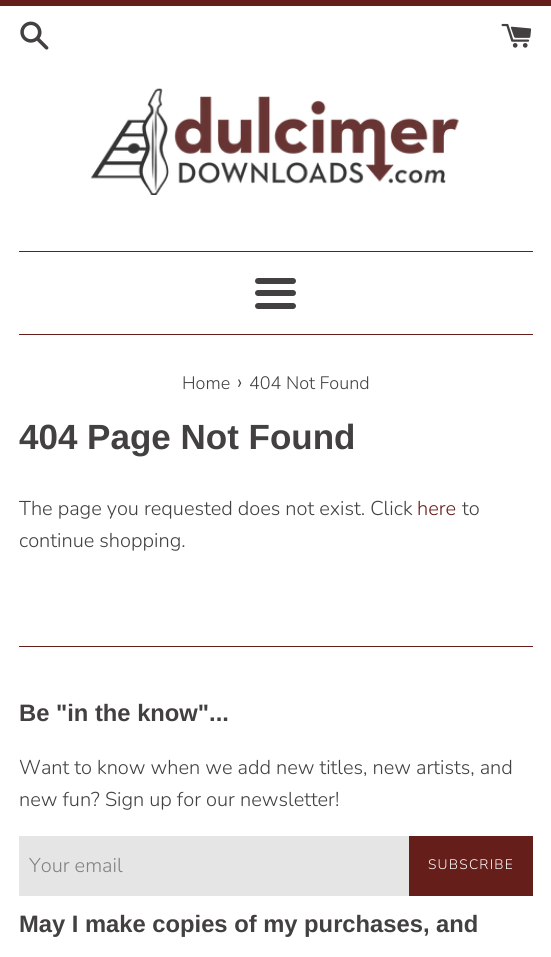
#include <cairo.h>
#include <math.h>
#include <stddef.h>


static void set_color(cairo_t *cr, unsigned color) {
    cairo_set_source_rgb(cr, (color >> 16) / 255.0, (color >> 8 & 255) / 255.0, (color & 255) / 255.0);
}

static void draw_text(cairo_t *cr, double x, double y, const char *s, const char *family, double size, int italic, int bold, unsigned color) {
    cairo_select_font_face(cr, family, italic ? CAIRO_FONT_SLANT_ITALIC : CAIRO_FONT_SLANT_NORMAL,
        bold ? CAIRO_FONT_WEIGHT_BOLD : CAIRO_FONT_WEIGHT_NORMAL);
    cairo_set_font_size(cr, size);
    set_color(cr, color);
    cairo_move_to(cr, x, y);
    cairo_show_text(cr, s);
}

static void draw_spaced(cairo_t *cr, double x, double y, const char *s, double letter, double word) {
    cairo_move_to(cr, x, y);
    while (*s) {
        char ch[5] = {0};
        int n = 0;
        do ch[n++] = *s++; while ((*s & 0xC0) == 0x80);
        cairo_show_text(cr, ch);
        cairo_rel_move_to(cr, letter + word * (*ch == ' '), 0);
    }
}

static void fill_rect(cairo_t *cr, double x, double y, double w, double h, unsigned color) {
    set_color(cr, color);
    cairo_rectangle(cr, x, y, w, h);
    cairo_fill(cr);
}

static void rounded_rect(cairo_t *cr, double x, double y, double w, double h, double r) {
    cairo_new_sub_path(cr);
    cairo_arc(cr, x + w - r, y + h - r, r, 0, M_PI / 2);
    cairo_arc(cr, x + r, y + h - r, r, M_PI / 2, M_PI);
    cairo_arc(cr, x + r, y + r, r, M_PI, 1.5 * M_PI);
    cairo_arc(cr, x + w - r, y + r, r, 1.5 * M_PI, 2 * M_PI);
    cairo_close_path(cr);
}

static void draw_image(cairo_t *cr, const char *path, double x, double y, double w, double h) {
    cairo_surface_t *image = cairo_image_surface_create_from_png(path);
    cairo_save(cr);
    cairo_set_source_surface(cr, image, x, y);
    cairo_rectangle(cr, x, y, w, h);
    cairo_fill(cr);
    cairo_restore(cr);
    cairo_surface_destroy(image);
}

int main(void) {
    cairo_surface_t *surface = cairo_image_surface_create(CAIRO_FORMAT_RGB24, 551, 957);
    cairo_t *cr = cairo_create(surface);
    cairo_font_options_t *options = cairo_font_options_create();
    cairo_font_options_set_hint_metrics(options, CAIRO_HINT_METRICS_OFF);
    cairo_font_options_set_hint_style(options, CAIRO_HINT_STYLE_NONE);
    cairo_set_font_options(cr, options);
    cairo_set_miter_limit(cr, 4);
    set_color(cr, 0xFFFFFF);
    cairo_paint(cr);
    fill_rect(cr, 0, 0, 551, 6, 0x651E1A);
    draw_image(cr, "assets/img1.png", 20, 21, 29, 29);
    draw_image(cr, "assets/img2.png", 501, 23, 31, 25);
    draw_image(cr, "assets/img3.png", 90, 88, 369, 107);
    fill_rect(cr, 19, 251, 514, 1, 0x651E1A);
    set_color(cr, 0x424040);
    rounded_rect(cr, 255, 278, 41, 6, 3);
    cairo_fill(cr);
    rounded_rect(cr, 255, 290, 41, 6, 3);
    cairo_fill(cr);
    rounded_rect(cr, 255, 303, 41, 6, 3);
    cairo_fill(cr);
    fill_rect(cr, 19, 334, 514, 1, 0x651E1A);
    draw_text(cr, 182, 389, "Home", "Nunito Light", 18, 0, 0, 0x424040);
    draw_text(cr, 237, 389, "›", "Nunito Light", 22, 0, 0, 0x424040);
    draw_text(cr, 249, 389, "404 Not Found", "Nunito Light", 18, 0, 0, 0x424040);
    draw_text(cr, 19, 449, "404 Page Not Found", "Arimo", 35, 0, 1, 0x424040);
    draw_text(cr, 19, 515, "The page you requested does not exist. Click", "Nunito Light", 20, 0, 0, 0x424040);
    draw_text(cr, 417, 515, "here", "Nunito Light", 20, 0, 0, 0x651E1A);
    draw_text(cr, 462, 515, "to", "Nunito Light", 20, 0, 0, 0x424040);
    draw_text(cr, 19, 547, "continue shopping.", "Nunito Light", 20, 0, 0, 0x424040);
    fill_rect(cr, 19, 646, 514, 1, 0x651E1A);
    draw_text(cr, 19, 721, "Be \"in the know\"...", "Arimo", 23.75, 0, 1, 0x424040);
    draw_text(cr, 19, 774, "Want to know when we add new titles, new artists, and", "Nunito Light", 20, 0, 0, 0x424040);
    draw_text(cr, 19, 806, "new fun? Sign up for our newsletter!", "Nunito Light", 20, 0, 0, 0x424040);
    fill_rect(cr, 19, 836, 390, 60, 0xE5E5E5);
    draw_text(cr, 29, 872, "Your email", "Nunito Light", 20, 0, 0, 0x838282);
    fill_rect(cr, 409, 836, 124, 60, 0x651E1A);
    cairo_set_font_size(cr, 13.75);
    set_color(cr, 0xFFFFFF);
    draw_spaced(cr, 428, 869, "SUBSCRIBE", 1.25, 0);
    draw_text(cr, 19, 932, "May I make copies of my purchases, and", "Arimo", 23.75, 0, 1, 0x424040);
    cairo_surface_write_to_png(surface, "output.png");
    cairo_font_options_destroy(options);
    cairo_destroy(cr);
    cairo_surface_destroy(surface);
    return 0;
}
